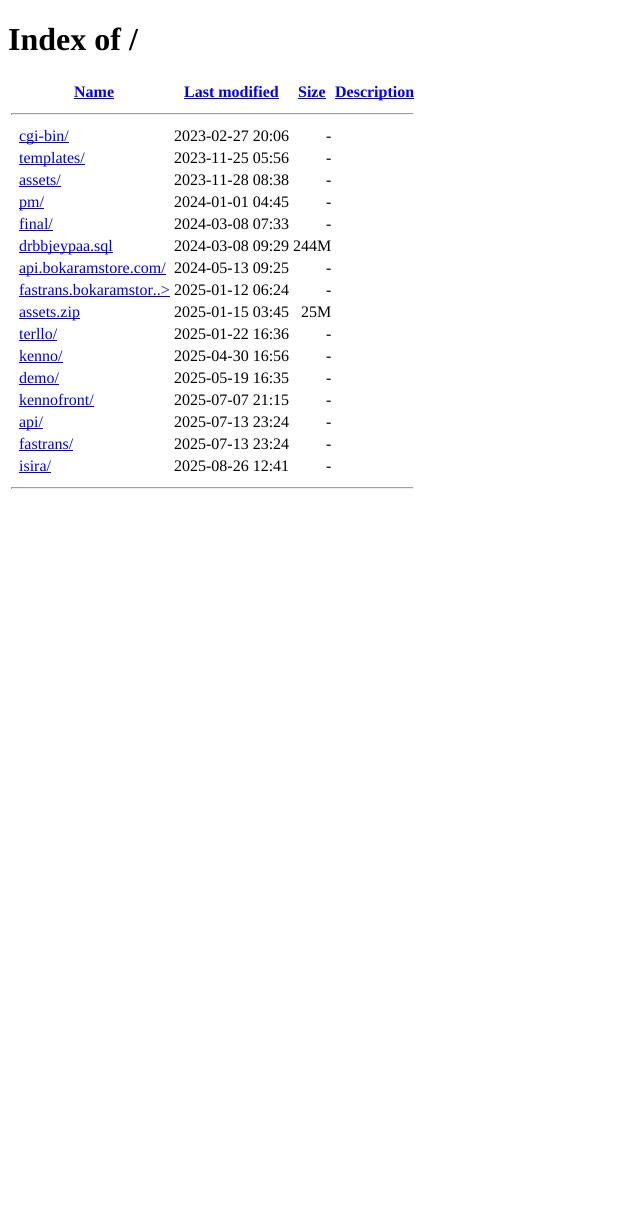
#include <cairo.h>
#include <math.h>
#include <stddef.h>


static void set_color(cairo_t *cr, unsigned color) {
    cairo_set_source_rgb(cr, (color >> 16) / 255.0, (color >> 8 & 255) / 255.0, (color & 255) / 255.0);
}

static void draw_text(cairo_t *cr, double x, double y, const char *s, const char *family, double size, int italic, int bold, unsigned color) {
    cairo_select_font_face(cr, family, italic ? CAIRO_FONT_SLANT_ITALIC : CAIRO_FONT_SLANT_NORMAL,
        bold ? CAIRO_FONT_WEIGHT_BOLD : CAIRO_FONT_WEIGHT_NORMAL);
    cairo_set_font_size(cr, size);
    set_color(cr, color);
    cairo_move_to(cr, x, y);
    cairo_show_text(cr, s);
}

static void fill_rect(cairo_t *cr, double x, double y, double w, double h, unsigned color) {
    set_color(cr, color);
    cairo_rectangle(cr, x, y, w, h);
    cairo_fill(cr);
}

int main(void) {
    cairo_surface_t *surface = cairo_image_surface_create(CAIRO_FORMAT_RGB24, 637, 1229);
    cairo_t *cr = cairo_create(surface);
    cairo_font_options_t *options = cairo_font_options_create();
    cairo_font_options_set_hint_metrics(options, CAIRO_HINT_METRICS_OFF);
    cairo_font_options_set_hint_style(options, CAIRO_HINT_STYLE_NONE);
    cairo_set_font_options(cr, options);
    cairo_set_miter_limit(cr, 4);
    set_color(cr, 0xFFFFFF);
    cairo_paint(cr);
    draw_text(cr, 8, 50, "Index of /", "Liberation Serif", 32, 0, 1, 0x000000);
    draw_text(cr, 74, 97, "Name", "Liberation Serif", 16, 0, 1, 0x0000EE);
    fill_rect(cr, 74, 98, 40, 1, 0x0000EE);
    draw_text(cr, 184, 97, "Last modified", "Liberation Serif", 16, 0, 1, 0x0000EE);
    fill_rect(cr, 184, 98, 95, 1, 0x0000EE);
    draw_text(cr, 298, 97, "Size", "Liberation Serif", 16, 0, 1, 0x0000EE);
    fill_rect(cr, 298, 98, 28, 1, 0x0000EE);
    fill_rect(cr, 335, 98, 79, 1, 0x0000EE);
    draw_text(cr, 335, 97, "Description", "Liberation Serif", 16, 0, 1, 0x0000EE);
    fill_rect(cr, 11, 113, 403, 1, 0x9F9F9F);
    fill_rect(cr, 413, 113, 1, 2, 0xEEEEEE);
    fill_rect(cr, 11, 114, 403, 1, 0xEEEEEE);
    fill_rect(cr, 11, 113, 1, 2, 0x9F9F9F);
    fill_rect(cr, 19, 142, 50, 1, 0x0000EE);
    draw_text(cr, 19, 141, "cgi-bin/", "Liberation Serif", 16, 0, 0, 0x0000EE);
    draw_text(cr, 174, 141, "2023-02-27 20:06", "Liberation Serif", 16, 0, 0, 0x000000);
    draw_text(cr, 326, 141, "-", "Liberation Serif", 16, 0, 0, 0x000000);
    fill_rect(cr, 19, 164, 66, 1, 0x0000EE);
    draw_text(cr, 19, 163, "templates/", "Liberation Serif", 16, 0, 0, 0x0000EE);
    draw_text(cr, 174, 163, "2023-11-25 05:56", "Liberation Serif", 16, 0, 0, 0x000000);
    draw_text(cr, 326, 163, "-", "Liberation Serif", 16, 0, 0, 0x000000);
    draw_text(cr, 19, 185, "assets/", "Liberation Serif", 16, 0, 0, 0x0000EE);
    fill_rect(cr, 19, 186, 42, 1, 0x0000EE);
    draw_text(cr, 174, 185, "2023-11-28 08:38", "Liberation Serif", 16, 0, 0, 0x000000);
    draw_text(cr, 326, 185, "-", "Liberation Serif", 16, 0, 0, 0x000000);
    fill_rect(cr, 19, 208, 25, 1, 0x0000EE);
    draw_text(cr, 19, 207, "pm/", "Liberation Serif", 16, 0, 0, 0x0000EE);
    draw_text(cr, 174, 207, "2024-01-01 04:45", "Liberation Serif", 16, 0, 0, 0x000000);
    draw_text(cr, 326, 207, "-", "Liberation Serif", 16, 0, 0, 0x000000);
    draw_text(cr, 19, 229, "final/", "Liberation Serif", 16, 0, 0, 0x0000EE);
    fill_rect(cr, 19, 230, 34, 1, 0x0000EE);
    draw_text(cr, 174, 229, "2024-03-08 07:33", "Liberation Serif", 16, 0, 0, 0x000000);
    draw_text(cr, 326, 229, "-", "Liberation Serif", 16, 0, 0, 0x000000);
    fill_rect(cr, 19, 252, 94, 1, 0x0000EE);
    draw_text(cr, 19, 251, "drbbjeypaa.sql", "Liberation Serif", 16, 0, 0, 0x0000EE);
    draw_text(cr, 174, 251, "2024-03-08 09:29 244M", "Liberation Serif", 16, 0, 0, 0x000000);
    fill_rect(cr, 19, 274, 147, 1, 0x0000EE);
    draw_text(cr, 19, 273, "api.bokaramstore.com/", "Liberation Serif", 16, 0, 0, 0x0000EE);
    draw_text(cr, 174, 273, "2024-05-13 09:25", "Liberation Serif", 16, 0, 0, 0x000000);
    draw_text(cr, 326, 273, "-", "Liberation Serif", 16, 0, 0, 0x000000);
    draw_text(cr, 19, 295, "fastrans.bokaramstor..>", "Liberation Serif", 16, 0, 0, 0x0000EE);
    fill_rect(cr, 19, 296, 151, 1, 0x0000EE);
    draw_text(cr, 174, 295, "2025-01-12 06:24", "Liberation Serif", 16, 0, 0, 0x000000);
    draw_text(cr, 326, 295, "-", "Liberation Serif", 16, 0, 0, 0x000000);
    fill_rect(cr, 19, 318, 61, 1, 0x0000EE);
    draw_text(cr, 19, 317, "assets.zip", "Liberation Serif", 16, 0, 0, 0x0000EE);
    draw_text(cr, 174, 317, "2025-01-15 03:45", "Liberation Serif", 16, 0, 0, 0x000000);
    draw_text(cr, 301, 317, "25M", "Liberation Serif", 16, 0, 0, 0x000000);
    draw_text(cr, 19, 339, "terllo/", "Liberation Serif", 16, 0, 0, 0x0000EE);
    fill_rect(cr, 19, 340, 38, 1, 0x0000EE);
    draw_text(cr, 174, 339, "2025-01-22 16:36", "Liberation Serif", 16, 0, 0, 0x000000);
    draw_text(cr, 326, 339, "-", "Liberation Serif", 16, 0, 0, 0x000000);
    draw_text(cr, 19, 361, "kenno/", "Liberation Serif", 16, 0, 0, 0x0000EE);
    fill_rect(cr, 19, 362, 44, 1, 0x0000EE);
    draw_text(cr, 174, 361, "2025-04-30 16:56", "Liberation Serif", 16, 0, 0, 0x000000);
    draw_text(cr, 326, 361, "-", "Liberation Serif", 16, 0, 0, 0x000000);
    draw_text(cr, 19, 383, "demo/", "Liberation Serif", 16, 0, 0, 0x0000EE);
    fill_rect(cr, 19, 384, 40, 1, 0x0000EE);
    draw_text(cr, 174, 383, "2025-05-19 16:35", "Liberation Serif", 16, 0, 0, 0x000000);
    draw_text(cr, 326, 383, "-", "Liberation Serif", 16, 0, 0, 0x000000);
    draw_text(cr, 19, 405, "kennofront/", "Liberation Serif", 16, 0, 0, 0x0000EE);
    fill_rect(cr, 19, 406, 75, 1, 0x0000EE);
    draw_text(cr, 174, 405, "2025-07-07 21:15", "Liberation Serif", 16, 0, 0, 0x000000);
    draw_text(cr, 326, 405, "-", "Liberation Serif", 16, 0, 0, 0x000000);
    fill_rect(cr, 19, 428, 24, 1, 0x0000EE);
    draw_text(cr, 19, 427, "api/", "Liberation Serif", 16, 0, 0, 0x0000EE);
    draw_text(cr, 174, 427, "2025-07-13 23:24", "Liberation Serif", 16, 0, 0, 0x000000);
    draw_text(cr, 326, 427, "-", "Liberation Serif", 16, 0, 0, 0x000000);
    draw_text(cr, 19, 449, "fastrans/", "Liberation Serif", 16, 0, 0, 0x0000EE);
    fill_rect(cr, 19, 450, 54, 1, 0x0000EE);
    draw_text(cr, 174, 449, "2025-07-13 23:24", "Liberation Serif", 16, 0, 0, 0x000000);
    draw_text(cr, 326, 449, "-", "Liberation Serif", 16, 0, 0, 0x000000);
    draw_text(cr, 19, 471, "isira/", "Liberation Serif", 16, 0, 0, 0x0000EE);
    fill_rect(cr, 19, 472, 32, 1, 0x0000EE);
    draw_text(cr, 174, 471, "2025-08-26 12:41", "Liberation Serif", 16, 0, 0, 0x000000);
    draw_text(cr, 326, 471, "-", "Liberation Serif", 16, 0, 0, 0x000000);
    fill_rect(cr, 11, 487, 403, 1, 0x9F9F9F);
    fill_rect(cr, 413, 487, 1, 2, 0xEEEEEE);
    fill_rect(cr, 11, 488, 403, 1, 0xEEEEEE);
    fill_rect(cr, 11, 487, 1, 2, 0x9F9F9F);
    cairo_surface_write_to_png(surface, "output.png");
    cairo_font_options_destroy(options);
    cairo_destroy(cr);
    cairo_surface_destroy(surface);
    return 0;
}
